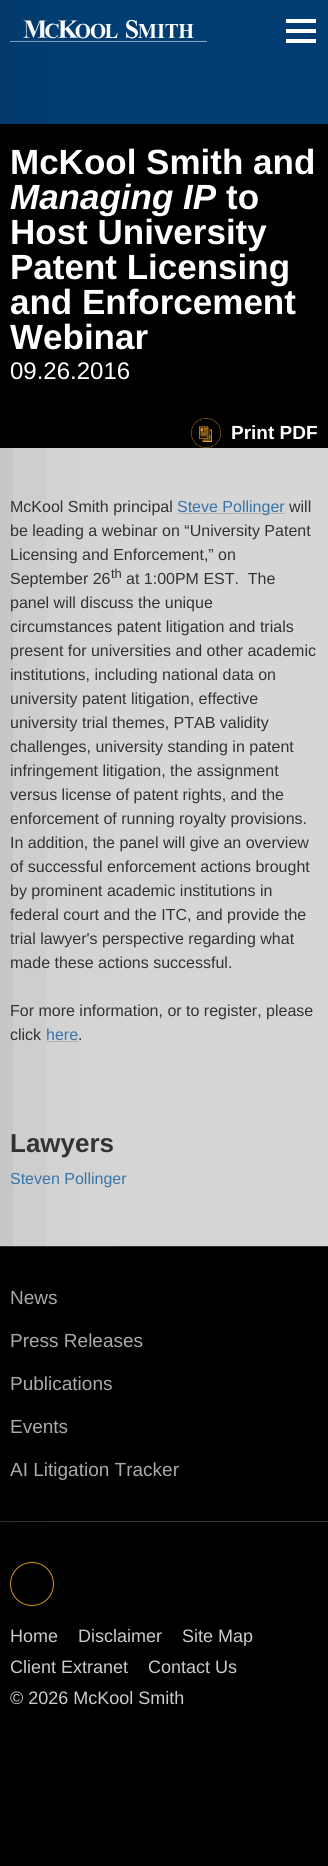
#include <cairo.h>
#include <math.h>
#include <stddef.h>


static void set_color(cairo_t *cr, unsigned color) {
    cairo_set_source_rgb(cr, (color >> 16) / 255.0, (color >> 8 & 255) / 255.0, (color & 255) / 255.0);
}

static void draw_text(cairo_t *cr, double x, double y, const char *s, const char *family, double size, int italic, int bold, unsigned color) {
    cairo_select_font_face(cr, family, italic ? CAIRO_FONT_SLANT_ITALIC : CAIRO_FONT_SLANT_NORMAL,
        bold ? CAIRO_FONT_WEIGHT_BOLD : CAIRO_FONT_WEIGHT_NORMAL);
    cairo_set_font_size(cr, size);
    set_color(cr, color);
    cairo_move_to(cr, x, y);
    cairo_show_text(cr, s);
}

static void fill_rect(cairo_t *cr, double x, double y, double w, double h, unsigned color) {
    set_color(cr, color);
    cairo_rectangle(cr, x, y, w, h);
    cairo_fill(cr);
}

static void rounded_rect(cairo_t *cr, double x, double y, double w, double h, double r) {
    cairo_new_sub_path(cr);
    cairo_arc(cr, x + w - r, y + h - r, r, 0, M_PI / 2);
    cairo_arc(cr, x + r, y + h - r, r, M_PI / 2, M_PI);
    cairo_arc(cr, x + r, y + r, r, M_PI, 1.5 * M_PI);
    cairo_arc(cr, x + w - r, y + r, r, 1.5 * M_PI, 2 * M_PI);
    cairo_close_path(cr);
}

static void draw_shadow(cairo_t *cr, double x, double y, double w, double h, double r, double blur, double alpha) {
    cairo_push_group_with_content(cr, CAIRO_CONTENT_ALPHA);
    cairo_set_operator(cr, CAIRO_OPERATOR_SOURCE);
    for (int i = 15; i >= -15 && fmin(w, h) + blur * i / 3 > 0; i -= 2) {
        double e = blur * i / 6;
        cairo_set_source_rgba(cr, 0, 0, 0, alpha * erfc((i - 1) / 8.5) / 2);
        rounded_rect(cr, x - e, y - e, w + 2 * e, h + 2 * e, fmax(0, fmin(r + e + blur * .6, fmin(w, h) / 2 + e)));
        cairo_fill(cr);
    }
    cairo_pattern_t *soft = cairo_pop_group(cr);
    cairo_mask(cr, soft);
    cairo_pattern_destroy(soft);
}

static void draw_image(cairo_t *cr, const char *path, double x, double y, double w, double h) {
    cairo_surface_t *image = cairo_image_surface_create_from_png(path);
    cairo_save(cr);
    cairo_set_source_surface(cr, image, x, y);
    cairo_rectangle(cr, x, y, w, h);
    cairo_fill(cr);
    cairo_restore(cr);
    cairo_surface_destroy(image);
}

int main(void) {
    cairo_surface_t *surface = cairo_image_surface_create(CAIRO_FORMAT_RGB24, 328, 1866);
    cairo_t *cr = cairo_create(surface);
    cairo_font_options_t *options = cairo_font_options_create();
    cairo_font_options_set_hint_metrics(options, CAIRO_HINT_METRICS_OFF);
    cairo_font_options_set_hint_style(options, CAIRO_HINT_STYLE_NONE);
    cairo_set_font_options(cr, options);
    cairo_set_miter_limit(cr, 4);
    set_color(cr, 0x000000);
    cairo_paint(cr);
    fill_rect(cr, 0, 0, 328, 124, 0x023E73);
    draw_image(cr, "assets/img1.png", 10, 20, 197, 22);
    fill_rect(cr, 0, 448, 328, 798, 0xD6D6D6);
    fill_rect(cr, 46, 1041, 32, 1, 0xB4B4B4);
    fill_rect(cr, 0, 1246, 328, 1, 0x333333);
    fill_rect(cr, 0, 1521, 328, 1, 0x333333);
    cairo_arc(cr, 32, 1584, 21.5, 0, 2 * M_PI);
    set_color(cr, 0xDE9623);
    cairo_set_line_width(cr, 1);
    cairo_stroke(cr);
    set_color(cr, 0x000000);
    draw_shadow(cr, -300, -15, 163, 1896, 0, 100, 0.8);
    fill_rect(cr, 286, 19, 30, 4, 0xFFFFFF);
    fill_rect(cr, 286, 29, 30, 4, 0xFFFFFF);
    fill_rect(cr, 286, 39, 30, 4, 0xFFFFFF);
    draw_text(cr, 10, 174, "McKool Smith and", "Liberation Sans", 35, 0, 1, 0xFFFFFF);
    draw_text(cr, 10, 209, "Managing IP", "Liberation Sans", 35, 1, 1, 0xFFFFFF);
    draw_text(cr, 226, 209, "to", "Liberation Sans", 35, 0, 1, 0xFFFFFF);
    draw_text(cr, 10, 244, "Host University", "Liberation Sans", 35, 0, 1, 0xFFFFFF);
    draw_text(cr, 10, 279, "Patent Licensing", "Liberation Sans", 35, 0, 1, 0xFFFFFF);
    draw_text(cr, 10, 314, "and Enforcement", "Liberation Sans", 35, 0, 1, 0xFFFFFF);
    draw_text(cr, 10, 349, "Webinar", "Liberation Sans", 35, 0, 1, 0xFFFFFF);
    draw_text(cr, 10, 379, "09.26.2016", "Liberation Sans", 24, 0, 0, 0xFFFFFF);
    draw_image(cr, "assets/img2.png", 191, 418, 30, 30);
    draw_text(cr, 231, 439, "Print PDF", "Liberation Sans", 19, 0, 1, 0xFFFFFF);
    draw_text(cr, 10, 512, "McKool Smith principal", "Liberation Sans", 16, 0, 0, 0x333333);
    fill_rect(cr, 177, 513, 108, 1, 0xB4B4B4);
    draw_text(cr, 177, 512, "Steve Pollinger", "Liberation Sans", 16, 0, 0, 0x3874A8);
    draw_text(cr, 289, 512, "will", "Liberation Sans", 16, 0, 0, 0x333333);
    draw_text(cr, 10, 536, "be leading a webinar on “University Patent", "Liberation Sans", 16, 0, 0, 0x333333);
    draw_text(cr, 10, 560, "Licensing and Enforcement,” on", "Liberation Sans", 16, 0, 0, 0x333333);
    draw_text(cr, 10, 584, "September 26", "Liberation Sans", 16, 0, 0, 0x333333);
    draw_text(cr, 111, 578, "th", "Liberation Sans", 13, 0, 0, 0x333333);
    draw_text(cr, 126, 584, "at 1:00PM EST.  The", "Liberation Sans", 16, 0, 0, 0x333333);
    draw_text(cr, 10, 608, "panel will discuss the unique", "Liberation Sans", 16, 0, 0, 0x333333);
    draw_text(cr, 10, 632, "circumstances patent litigation and trials", "Liberation Sans", 16, 0, 0, 0x333333);
    draw_text(cr, 10, 656, "present for universities and other academic", "Liberation Sans", 16, 0, 0, 0x333333);
    draw_text(cr, 10, 680, "institutions, including national data on", "Liberation Sans", 16, 0, 0, 0x333333);
    draw_text(cr, 10, 704, "university patent litigation, effective", "Liberation Sans", 16, 0, 0, 0x333333);
    draw_text(cr, 10, 728, "university trial themes, PTAB validity", "Liberation Sans", 16, 0, 0, 0x333333);
    draw_text(cr, 10, 752, "challenges, university standing in patent", "Liberation Sans", 16, 0, 0, 0x333333);
    draw_text(cr, 10, 776, "infringement litigation, the assignment", "Liberation Sans", 16, 0, 0, 0x333333);
    draw_text(cr, 10, 800, "versus license of patent rights, and the", "Liberation Sans", 16, 0, 0, 0x333333);
    draw_text(cr, 10, 824, "enforcement of running royalty provisions.", "Liberation Sans", 16, 0, 0, 0x333333);
    draw_text(cr, 10, 848, "In addition, the panel will give an overview", "Liberation Sans", 16, 0, 0, 0x333333);
    draw_text(cr, 10, 872, "of successful enforcement actions brought", "Liberation Sans", 16, 0, 0, 0x333333);
    draw_text(cr, 10, 896, "by prominent academic institutions in", "Liberation Sans", 16, 0, 0, 0x333333);
    draw_text(cr, 10, 920, "federal court and the ITC, and provide the", "Liberation Sans", 16, 0, 0, 0x333333);
    draw_text(cr, 10, 944, "trial lawyer's perspective regarding what", "Liberation Sans", 16, 0, 0, 0x333333);
    draw_text(cr, 10, 968, "made these actions successful.", "Liberation Sans", 16, 0, 0, 0x333333);
    draw_text(cr, 10, 1016, "For more information, or to register, please", "Liberation Sans", 16, 0, 0, 0x333333);
    draw_text(cr, 10, 1040, "click", "Liberation Sans", 16, 0, 0, 0x333333);
    draw_text(cr, 46, 1040, "here", "Liberation Sans", 16, 0, 0, 0x3874A8);
    draw_text(cr, 78, 1040, ".", "Liberation Sans", 16, 0, 0, 0x333333);
    draw_text(cr, 10, 1152, "Lawyers", "Liberation Sans", 26, 0, 1, 0x333333);
    draw_text(cr, 10, 1184, "Steven Pollinger", "Liberation Sans", 16, 0, 0, 0x3874A8);
    draw_text(cr, 10, 1304, "News", "Liberation Sans", 19, 0, 0, 0xAAAAAA);
    draw_text(cr, 10, 1347, "Press Releases", "Liberation Sans", 19, 0, 0, 0xAAAAAA);
    draw_text(cr, 10, 1390, "Publications", "Liberation Sans", 19, 0, 0, 0xAAAAAA);
    draw_text(cr, 10, 1433, "Events", "Liberation Sans", 19, 0, 0, 0xAAAAAA);
    draw_text(cr, 10, 1476, "AI Litigation Tracker", "Liberation Sans", 19, 0, 0, 0xAAAAAA);
    draw_text(cr, 10, 1642, "Home", "Liberation Sans", 18, 0, 0, 0xCCCCCC);
    draw_text(cr, 78, 1642, "Disclaimer", "Liberation Sans", 18, 0, 0, 0xCCCCCC);
    draw_text(cr, 182, 1642, "Site Map", "Liberation Sans", 18, 0, 0, 0xCCCCCC);
    draw_text(cr, 10, 1673, "Client Extranet", "Liberation Sans", 18, 0, 0, 0xCCCCCC);
    draw_text(cr, 148, 1673, "Contact Us", "Liberation Sans", 18, 0, 0, 0xCCCCCC);
    draw_text(cr, 10, 1704, "© 2026 McKool Smith", "Liberation Sans", 18, 0, 0, 0xCCCCCC);
    cairo_surface_write_to_png(surface, "output.png");
    cairo_font_options_destroy(options);
    cairo_destroy(cr);
    cairo_surface_destroy(surface);
    return 0;
}
